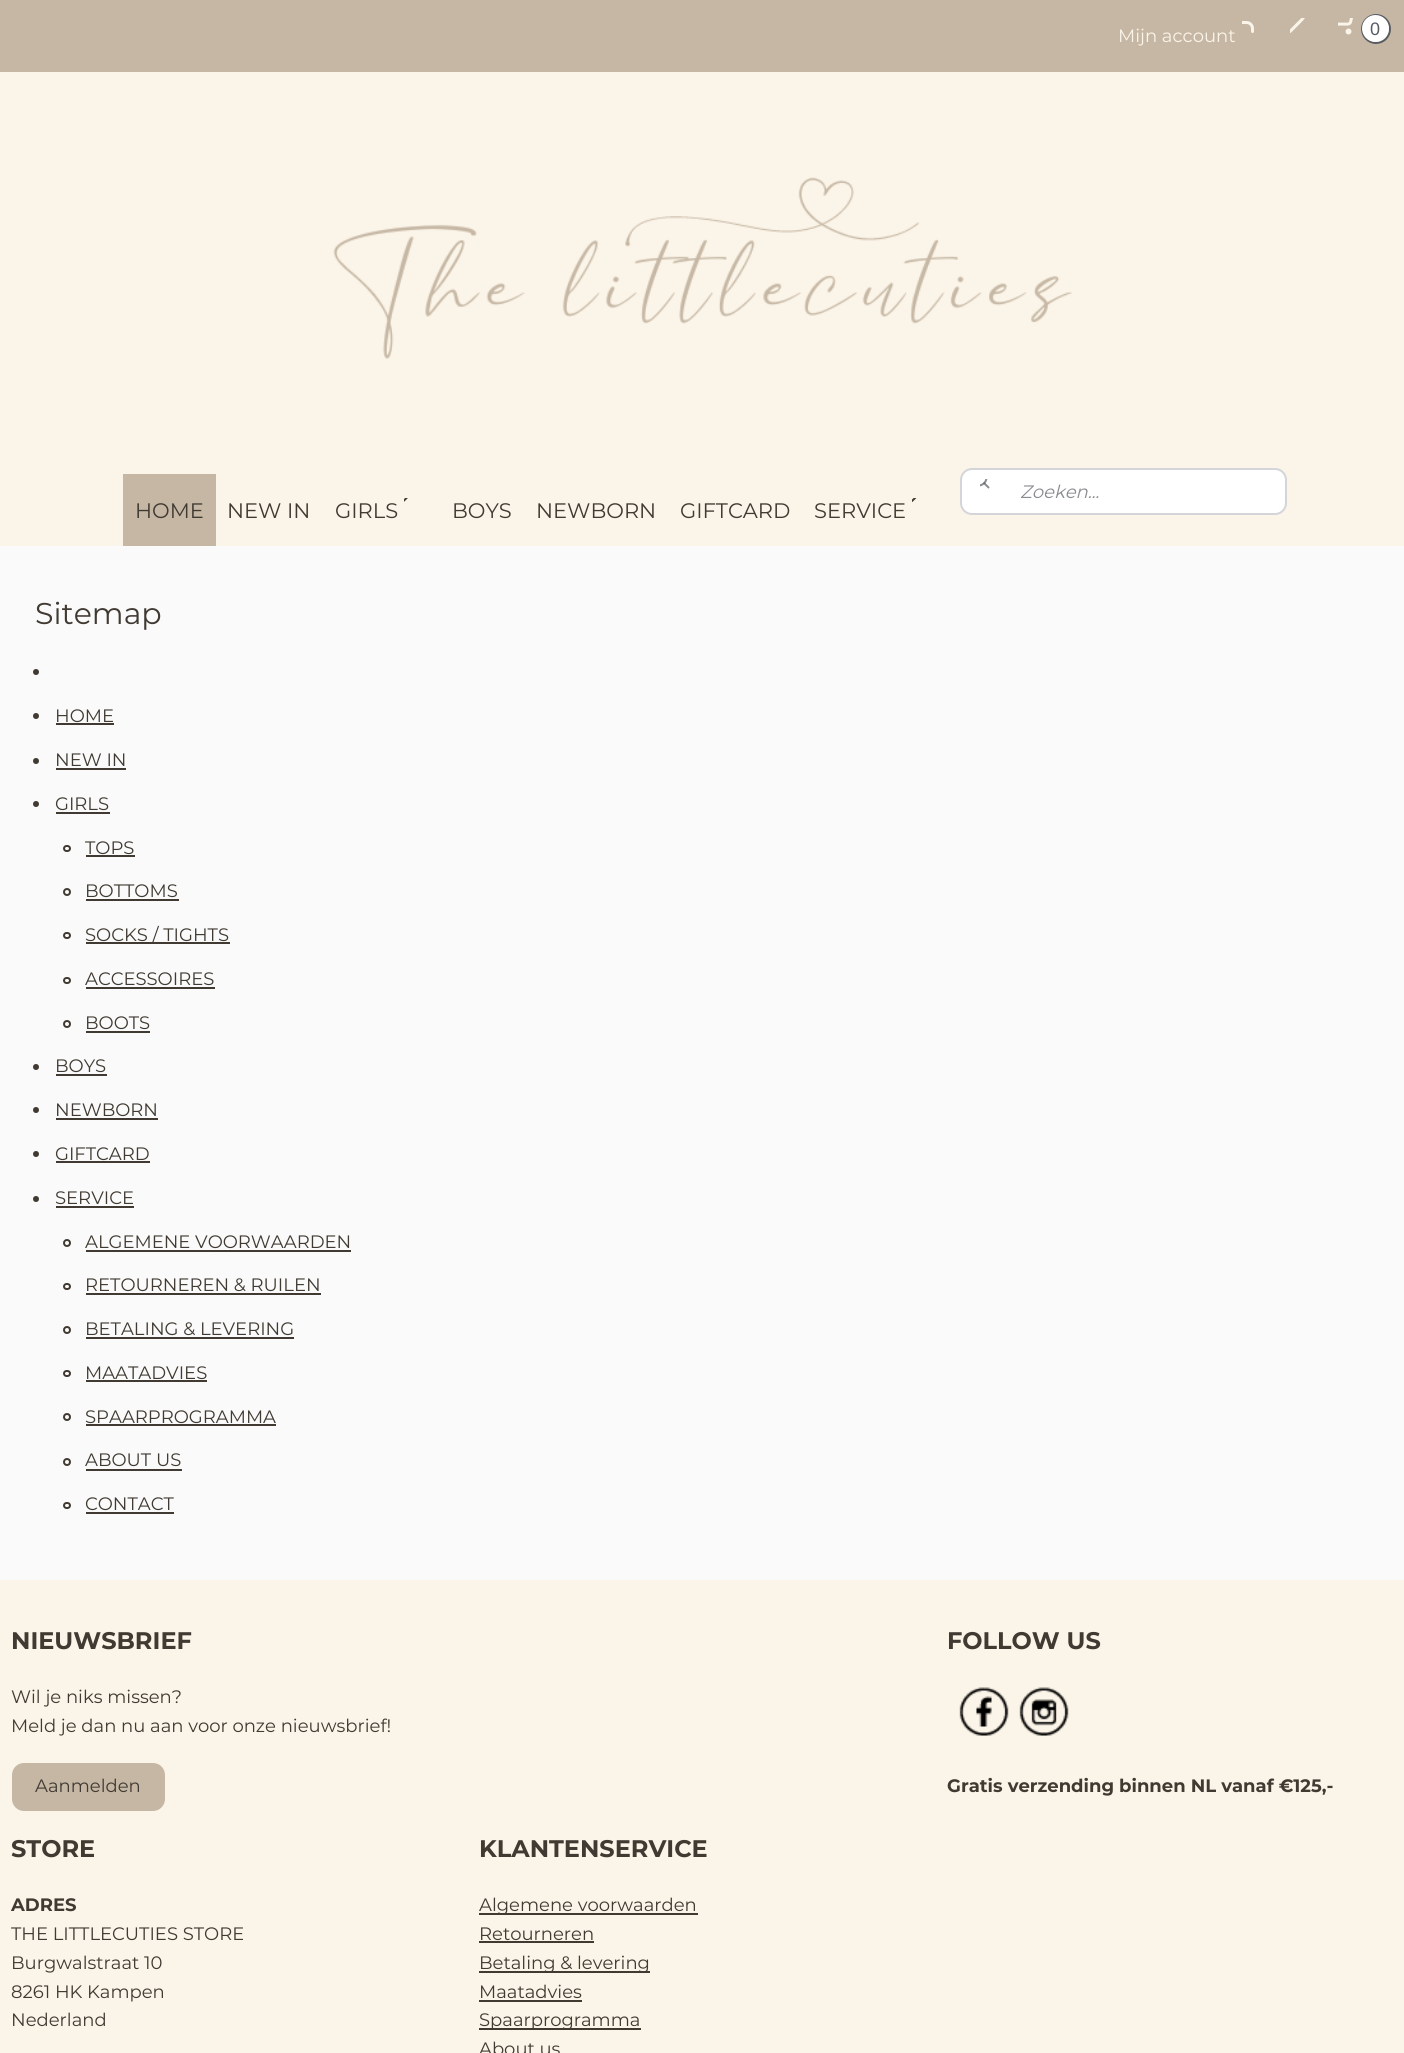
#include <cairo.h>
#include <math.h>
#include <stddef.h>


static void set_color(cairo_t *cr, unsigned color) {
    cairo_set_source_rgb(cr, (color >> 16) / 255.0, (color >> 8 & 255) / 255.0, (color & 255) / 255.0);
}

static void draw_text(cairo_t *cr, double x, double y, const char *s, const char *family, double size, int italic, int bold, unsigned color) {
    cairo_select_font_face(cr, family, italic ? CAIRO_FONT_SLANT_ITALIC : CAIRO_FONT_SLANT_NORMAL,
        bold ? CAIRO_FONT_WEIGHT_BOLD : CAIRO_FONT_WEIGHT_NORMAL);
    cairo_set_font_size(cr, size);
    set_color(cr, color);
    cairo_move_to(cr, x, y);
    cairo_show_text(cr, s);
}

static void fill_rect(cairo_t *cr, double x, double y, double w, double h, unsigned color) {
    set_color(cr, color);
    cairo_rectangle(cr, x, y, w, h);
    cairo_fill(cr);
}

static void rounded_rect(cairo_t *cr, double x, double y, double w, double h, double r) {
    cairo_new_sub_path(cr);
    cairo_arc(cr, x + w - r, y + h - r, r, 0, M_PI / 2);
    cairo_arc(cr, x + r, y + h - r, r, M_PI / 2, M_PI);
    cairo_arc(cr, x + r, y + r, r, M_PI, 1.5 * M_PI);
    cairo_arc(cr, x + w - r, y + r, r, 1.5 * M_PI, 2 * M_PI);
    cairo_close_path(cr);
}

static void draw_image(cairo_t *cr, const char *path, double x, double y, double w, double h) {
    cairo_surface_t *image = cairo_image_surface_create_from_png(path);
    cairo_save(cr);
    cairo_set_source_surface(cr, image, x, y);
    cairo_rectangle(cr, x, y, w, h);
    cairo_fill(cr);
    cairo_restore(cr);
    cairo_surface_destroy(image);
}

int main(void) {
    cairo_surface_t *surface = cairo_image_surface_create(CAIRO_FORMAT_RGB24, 1404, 2053);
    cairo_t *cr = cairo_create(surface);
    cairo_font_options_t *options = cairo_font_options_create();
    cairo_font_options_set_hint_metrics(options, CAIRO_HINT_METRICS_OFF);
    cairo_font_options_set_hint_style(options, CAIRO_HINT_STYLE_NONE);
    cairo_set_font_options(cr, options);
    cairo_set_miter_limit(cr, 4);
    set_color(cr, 0xFBF4E8);
    cairo_paint(cr);
    fill_rect(cr, 0, 546, 1404, 1034, 0xFAFAFA);
    fill_rect(cr, 0, 0, 1404, 72, 0xC5B7A4);
    draw_image(cr, "assets/img1.png", 1290, 18, 15, 15);
    draw_text(cr, 1118, 42, "Mijn account", "Montserrat", 18, 0, 0, 0xFBF4E8);
    draw_image(cr, "assets/img2.png", 1242, 21, 12, 12);
    draw_image(cr, "assets/img3.png", 1338, 18, 15, 17);
    cairo_arc(cr, 1376, 29, 14, 0, 2 * M_PI);
    set_color(cr, 0x575B62);
    cairo_stroke(cr);
    set_color(cr, 0xFFFFFF);
    cairo_arc(cr, 1375.5, 28.5, 13.5, 0, 2 * M_PI);
    cairo_fill(cr);
    draw_text(cr, 1370, 35, "0", "Liberation Sans", 18, 0, 0, 0x575B62);
    draw_image(cr, "assets/img4.png", 333, 177, 739, 182);
    set_color(cr, 0xFFFFFF);
    rounded_rect(cr, 961, 469, 325, 45, 11);
    cairo_fill_preserve(cr);
    set_color(cr, 0xD3D5D9);
    cairo_stroke(cr);
    draw_image(cr, "assets/img5.png", 980, 479, 10, 10);
    draw_text(cr, 1020, 498, "Zoeken...", "Montserrat", 18, 1, 0, 0x898C91);
    fill_rect(cr, 123, 474, 93, 72, 0xC5B7A4);
    draw_text(cr, 135, 518, "HOME", "Montserrat", 21, 0, 0, 0x403A32);
    draw_text(cr, 227, 518, "NEW IN", "Montserrat", 21, 0, 0, 0x403A32);
    draw_image(cr, "assets/img6.png", 404, 498, 4, 4);
    draw_text(cr, 335, 518, "GIRLS", "Montserrat", 21, 0, 0, 0x403A32);
    draw_text(cr, 452, 518, "BOYS", "Montserrat", 21, 0, 0, 0x403A32);
    draw_text(cr, 536, 518, "NEWBORN", "Montserrat", 21, 0, 0, 0x403A32);
    draw_text(cr, 680, 518, "GIFTCARD", "Montserrat", 21, 0, 0, 0x403A32);
    draw_image(cr, "assets/img7.png", 912, 498, 5, 4);
    draw_text(cr, 814, 518, "SERVICE", "Montserrat", 21, 0, 0, 0x403A32);
    draw_text(cr, 35, 624, "Sitemap", "Montserrat", 30, 0, 0, 0x403A32);
    cairo_new_path(cr);
    cairo_arc(cr, 36, 672, 3, 0, 2 * M_PI);
    cairo_fill(cr);
    cairo_arc(cr, 36, 716, 3, 0, 2 * M_PI);
    cairo_fill(cr);
    draw_text(cr, 55, 722, "HOME", "Montserrat", 18, 0, 0, 0x403A32);
    fill_rect(cr, 56, 723, 58, 2, 0x403A32);
    cairo_new_path(cr);
    cairo_arc(cr, 36, 761, 3, 0, 2 * M_PI);
    cairo_fill(cr);
    draw_text(cr, 55, 766, "NEW IN", "Montserrat", 18, 0, 0, 0x403A32);
    fill_rect(cr, 56, 768, 70, 2, 0x403A32);
    cairo_new_path(cr);
    cairo_arc(cr, 36, 804, 3, 0, 2 * M_PI);
    cairo_fill(cr);
    draw_text(cr, 55, 810, "GIRLS", "Montserrat", 18, 0, 0, 0x403A32);
    fill_rect(cr, 56, 812, 54, 2, 0x403A32);
    rounded_rect(cr, 64, 846, 6, 5, 2.5);
    cairo_stroke(cr);
    draw_text(cr, 85, 854, "TOPS", "Montserrat", 18, 0, 0, 0x403A32);
    fill_rect(cr, 86, 855, 49, 2, 0x403A32);
    cairo_new_path(cr);
    cairo_arc(cr, 67, 892, 3, 0, 2 * M_PI);
    cairo_stroke(cr);
    draw_text(cr, 85, 897, "BOTTOMS", "Montserrat", 18, 0, 0, 0x403A32);
    fill_rect(cr, 86, 899, 93, 2, 0x403A32);
    rounded_rect(cr, 64, 933, 6, 5, 2.5);
    cairo_stroke(cr);
    fill_rect(cr, 86, 942, 144, 2, 0x403A32);
    draw_text(cr, 85, 941, "SOCKS / TIGHTS", "Montserrat", 18, 0, 0, 0x403A32);
    rounded_rect(cr, 64, 978, 6, 5, 2.5);
    cairo_stroke(cr);
    draw_text(cr, 85, 985, "ACCESSOIRES", "Montserrat", 18, 0, 0, 0x403A32);
    fill_rect(cr, 86, 987, 129, 2, 0x403A32);
    cairo_new_path(cr);
    cairo_arc(cr, 67, 1024, 3, 0, 2 * M_PI);
    cairo_stroke(cr);
    draw_text(cr, 85, 1029, "BOOTS", "Montserrat", 18, 0, 0, 0x403A32);
    fill_rect(cr, 86, 1031, 64, 2, 0x403A32);
    cairo_new_path(cr);
    cairo_arc(cr, 36, 1067, 3, 0, 2 * M_PI);
    cairo_fill(cr);
    draw_text(cr, 55, 1072, "BOYS", "Montserrat", 18, 0, 0, 0x403A32);
    fill_rect(cr, 56, 1074, 51, 2, 0x403A32);
    cairo_new_path(cr);
    cairo_arc(cr, 36, 1110, 3, 0, 2 * M_PI);
    cairo_fill(cr);
    draw_text(cr, 55, 1116, "NEWBORN", "Montserrat", 18, 0, 0, 0x403A32);
    fill_rect(cr, 56, 1118, 102, 2, 0x403A32);
    cairo_new_path(cr);
    cairo_arc(cr, 36, 1154, 3, 0, 2 * M_PI);
    cairo_fill(cr);
    draw_text(cr, 55, 1160, "GIFTCARD", "Montserrat", 18, 0, 0, 0x403A32);
    fill_rect(cr, 56, 1161, 94, 2, 0x403A32);
    cairo_new_path(cr);
    cairo_arc(cr, 36, 1199, 3, 0, 2 * M_PI);
    cairo_fill(cr);
    draw_text(cr, 55, 1204, "SERVICE", "Montserrat", 18, 0, 0, 0x403A32);
    fill_rect(cr, 56, 1206, 78, 2, 0x403A32);
    cairo_new_path(cr);
    cairo_arc(cr, 67, 1243, 3, 0, 2 * M_PI);
    cairo_stroke(cr);
    draw_text(cr, 85, 1248, "ALGEMENE VOORWAARDEN", "Montserrat", 18, 0, 0, 0x403A32);
    fill_rect(cr, 86, 1250, 265, 2, 0x403A32);
    rounded_rect(cr, 64, 1284, 6, 5, 2.5);
    cairo_stroke(cr);
    draw_text(cr, 85, 1291, "RETOURNEREN & RUILEN", "Montserrat", 18, 0, 0, 0x403A32);
    fill_rect(cr, 86, 1293, 235, 2, 0x403A32);
    cairo_new_path(cr);
    cairo_arc(cr, 67, 1330, 3, 0, 2 * M_PI);
    cairo_stroke(cr);
    draw_text(cr, 85, 1335, "BETALING & LEVERING", "Montserrat", 18, 0, 0, 0x403A32);
    fill_rect(cr, 86, 1337, 208, 2, 0x403A32);
    rounded_rect(cr, 64, 1371, 6, 5, 2.5);
    cairo_stroke(cr);
    draw_text(cr, 85, 1379, "MAATADVIES", "Montserrat", 18, 0, 0, 0x403A32);
    fill_rect(cr, 86, 1380, 121, 2, 0x403A32);
    cairo_new_path(cr);
    cairo_arc(cr, 67, 1417, 3, 0, 2 * M_PI);
    cairo_stroke(cr);
    draw_text(cr, 85, 1423, "SPAARPROGRAMMA", "Montserrat", 18, 0, 0, 0x403A32);
    fill_rect(cr, 86, 1424, 190, 2, 0x403A32);
    cairo_new_path(cr);
    cairo_arc(cr, 67, 1462, 3, 0, 2 * M_PI);
    cairo_stroke(cr);
    draw_text(cr, 85, 1466, "ABOUT US", "Montserrat", 18, 0, 0, 0x403A32);
    fill_rect(cr, 86, 1469, 96, 2, 0x403A32);
    rounded_rect(cr, 64, 1503, 6, 5, 2.5);
    cairo_stroke(cr);
    draw_text(cr, 85, 1510, "CONTACT", "Montserrat", 18, 0, 0, 0x403A32);
    fill_rect(cr, 86, 1512, 88, 2, 0x403A32);
    draw_text(cr, 11, 1649, "NIEUWSBRIEF", "Montserrat", 24, 0, 1, 0x403A32);
    draw_text(cr, 11, 1703, "Wil je niks missen?", "Montserrat", 18, 0, 0, 0x403A32);
    draw_text(cr, 11, 1732, "Meld je dan nu aan voor onze nieuwsbrief!", "Montserrat", 18, 0, 0, 0x403A32);
    set_color(cr, 0xC5B7A4);
    rounded_rect(cr, 12, 1763, 153, 48, 12);
    cairo_fill(cr);
    draw_text(cr, 35, 1792, "Aanmelden", "Montserrat", 18, 0, 0, 0x403A32);
    draw_text(cr, 947, 1649, "FOLLOW US", "Montserrat", 24, 0, 1, 0x403A32);
    draw_image(cr, "assets/img8.png", 959, 1687, 50, 49);
    draw_image(cr, "assets/img9.png", 1019, 1687, 50, 49);
    draw_text(cr, 947, 1792, "Gratis verzending binnen NL vanaf €125,-", "Montserrat", 18, 0, 1, 0x403A32);
    draw_text(cr, 11, 1857, "STORE", "Montserrat", 24, 0, 1, 0x403A32);
    draw_text(cr, 11, 1911, "ADRES", "Montserrat", 18, 0, 1, 0x403A32);
    draw_text(cr, 11, 1940, "THE LITTLECUTIES STORE", "Montserrat", 18, 0, 0, 0x403A32);
    draw_text(cr, 11, 1969, "Burgwalstraat 10", "Montserrat", 18, 0, 0, 0x403A32);
    draw_text(cr, 11, 1998, "8261 HK Kampen", "Montserrat", 18, 0, 0, 0x403A32);
    draw_text(cr, 11, 2026, "Nederland", "Montserrat", 18, 0, 0, 0x403A32);
    draw_text(cr, 479, 1857, "KLANTENSERVICE", "Montserrat", 24, 0, 1, 0x403A32);
    fill_rect(cr, 479, 1913, 219, 2, 0x403A32);
    draw_text(cr, 479, 1911, "Algemene voorwaarden", "Montserrat", 18, 0, 0, 0x403A32);
    draw_text(cr, 479, 1940, "Retourneren", "Montserrat", 18, 0, 0, 0x403A32);
    fill_rect(cr, 479, 1941, 115, 2, 0x403A32);
    fill_rect(cr, 479, 1971, 171, 2, 0x403A32);
    draw_text(cr, 479, 1969, "Betaling & levering", "Montserrat", 18, 0, 0, 0x403A32);
    draw_text(cr, 479, 1998, "Maatadvies", "Montserrat", 18, 0, 0, 0x403A32);
    fill_rect(cr, 479, 2000, 103, 2, 0x403A32);
    fill_rect(cr, 479, 2028, 162, 2, 0x403A32);
    draw_text(cr, 479, 2026, "Spaarprogramma", "Montserrat", 18, 0, 0, 0x403A32);
    draw_text(cr, 479, 2055, "About us", "Montserrat", 18, 0, 0, 0x403A32);
    cairo_surface_write_to_png(surface, "output.png");
    cairo_font_options_destroy(options);
    cairo_destroy(cr);
    cairo_surface_destroy(surface);
    return 0;
}
